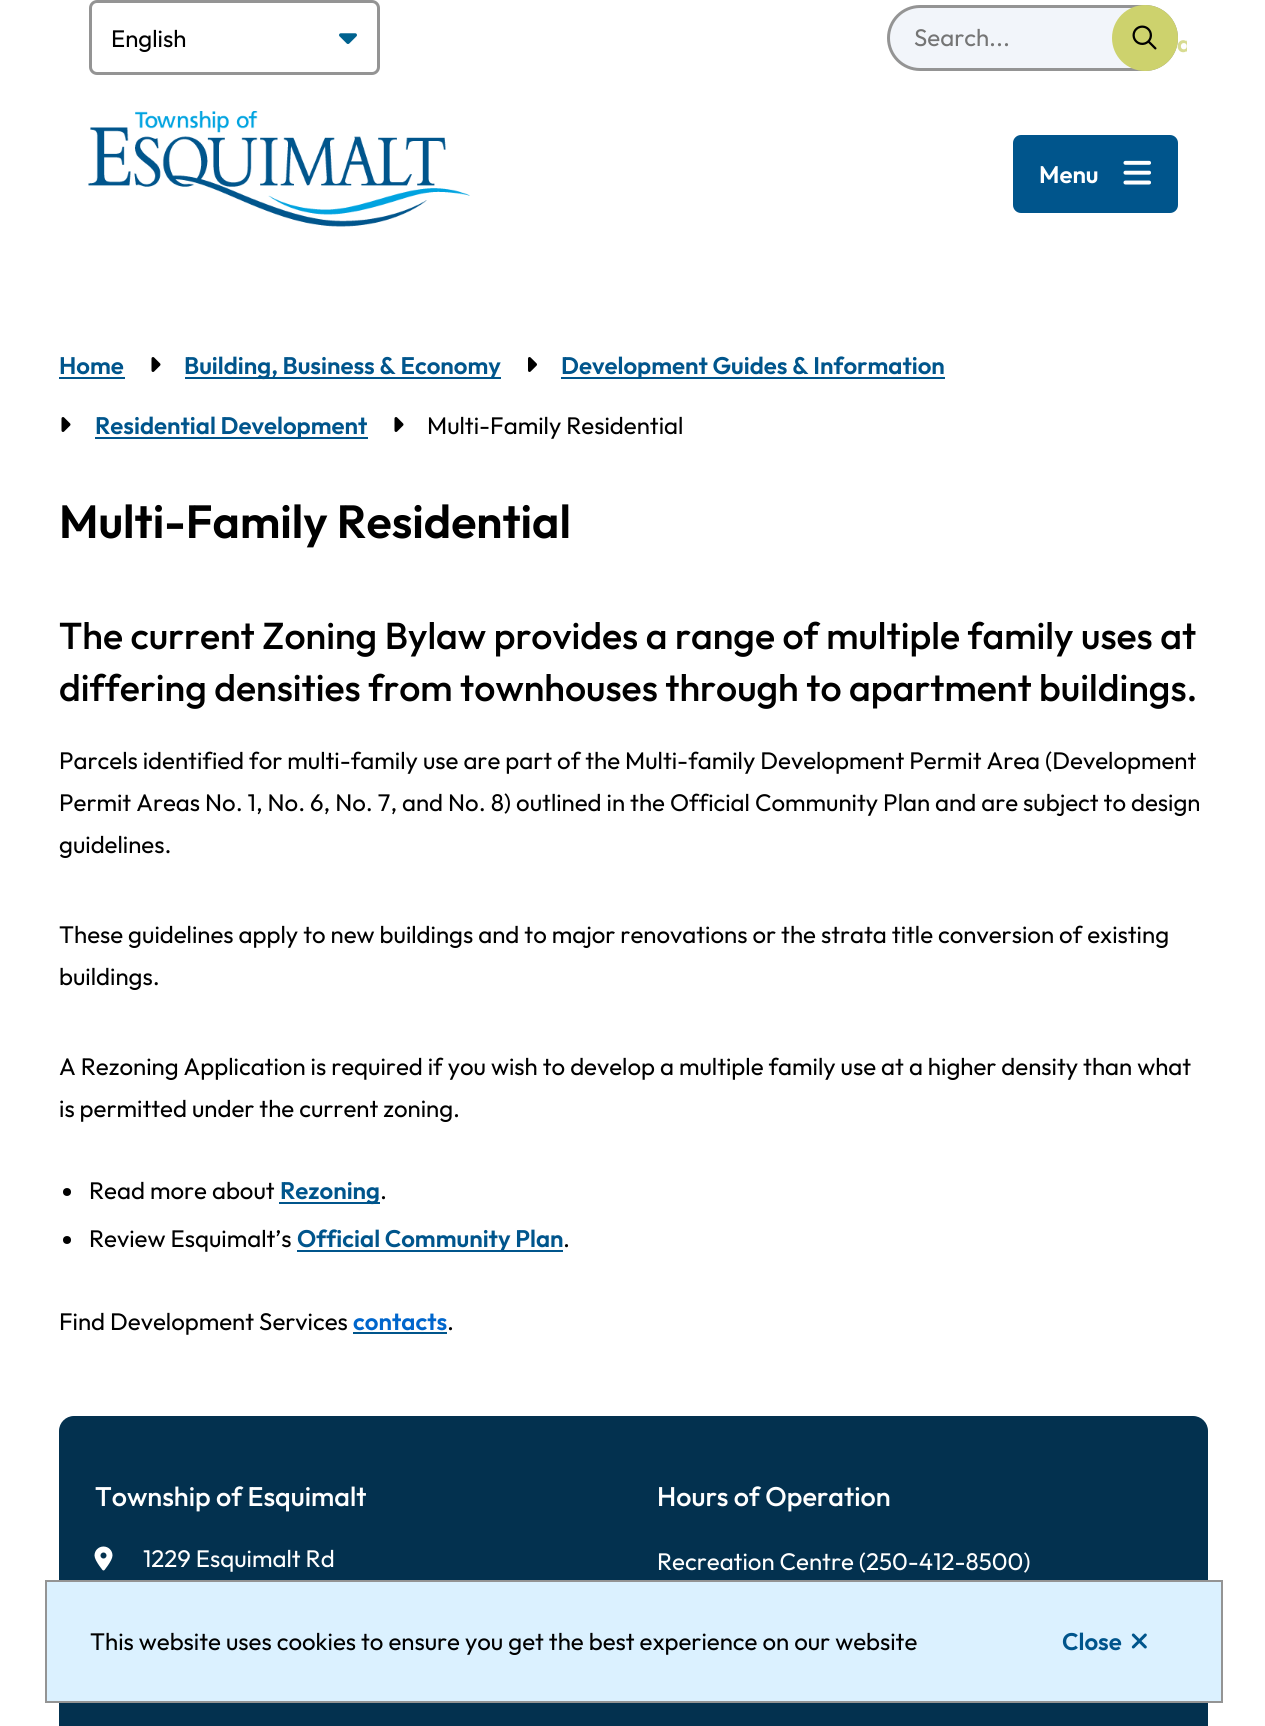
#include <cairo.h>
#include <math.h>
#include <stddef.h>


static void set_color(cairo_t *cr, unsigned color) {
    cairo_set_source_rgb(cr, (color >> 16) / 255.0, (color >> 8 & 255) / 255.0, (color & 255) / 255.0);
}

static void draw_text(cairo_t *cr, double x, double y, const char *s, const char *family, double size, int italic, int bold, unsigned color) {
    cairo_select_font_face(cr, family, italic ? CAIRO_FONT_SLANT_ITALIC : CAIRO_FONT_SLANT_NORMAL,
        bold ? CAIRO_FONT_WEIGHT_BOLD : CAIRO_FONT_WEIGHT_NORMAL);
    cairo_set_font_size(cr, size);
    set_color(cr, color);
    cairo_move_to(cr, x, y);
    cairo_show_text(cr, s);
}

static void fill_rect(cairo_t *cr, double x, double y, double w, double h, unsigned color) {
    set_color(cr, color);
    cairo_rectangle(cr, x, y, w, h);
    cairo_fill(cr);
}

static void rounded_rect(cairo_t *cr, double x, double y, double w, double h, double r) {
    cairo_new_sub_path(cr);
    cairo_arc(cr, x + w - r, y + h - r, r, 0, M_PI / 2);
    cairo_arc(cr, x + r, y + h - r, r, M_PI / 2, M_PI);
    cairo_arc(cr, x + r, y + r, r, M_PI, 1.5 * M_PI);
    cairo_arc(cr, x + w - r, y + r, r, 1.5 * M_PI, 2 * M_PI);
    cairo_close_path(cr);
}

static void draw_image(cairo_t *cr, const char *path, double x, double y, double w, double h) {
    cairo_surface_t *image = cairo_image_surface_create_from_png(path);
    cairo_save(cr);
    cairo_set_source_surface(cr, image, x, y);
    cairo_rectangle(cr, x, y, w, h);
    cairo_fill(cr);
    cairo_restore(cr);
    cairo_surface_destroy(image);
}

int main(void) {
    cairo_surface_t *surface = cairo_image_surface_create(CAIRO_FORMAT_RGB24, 1265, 1726);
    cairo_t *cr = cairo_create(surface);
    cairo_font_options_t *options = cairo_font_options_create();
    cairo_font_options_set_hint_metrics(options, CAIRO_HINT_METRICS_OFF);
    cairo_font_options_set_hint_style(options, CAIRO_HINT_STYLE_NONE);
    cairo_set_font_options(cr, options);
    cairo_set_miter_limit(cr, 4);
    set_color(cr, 0xFFFFFF);
    cairo_paint(cr);
    draw_image(cr, "assets/img1.png", 339, 33, 18, 11);
    rounded_rect(cr, 90.5, 1.5, 288, 72, 6.5);
    set_color(cr, 0x949494);
    cairo_set_line_width(cr, 3);
    cairo_stroke(cr);
    draw_text(cr, 111, 47, "English", "Outfit", 24, 0, 0, 0x000000);
    set_color(cr, 0xF2F5FA);
    rounded_rect(cr, 888.5, 6.5, 288, 63, 31.5);
    cairo_fill_preserve(cr);
    set_color(cr, 0x949494);
    cairo_stroke(cr);
    draw_text(cr, 914, 46, "Search...", "Outfit", 24, 0, 0, 0x757575);
    set_color(cr, 0xCDD26D);
    cairo_new_path(cr);
    cairo_arc(cr, 1145, 38, 33, 0, 2 * M_PI);
    cairo_fill(cr);
    draw_image(cr, "assets/img2.png", 1132, 25, 25, 25);
    cairo_save(cr);
    rounded_rect(cr, 1115, 8, 72, 60, 5);
    cairo_clip(cr);
    draw_text(cr, 1177, 52, "a", "Outfit SemiBold", 24, 0, 0, 0xD7DB90);
    cairo_restore(cr);
    draw_image(cr, "assets/img3.png", 88, 111, 382, 116);
    set_color(cr, 0x00558C);
    rounded_rect(cr, 1014.5, 136.5, 162, 75, 6.5);
    cairo_fill_preserve(cr);
    cairo_stroke(cr);
    draw_text(cr, 1039, 183, "Menu", "Outfit SemiBold", 24, 0, 0, 0xFFFFFF);
    draw_image(cr, "assets/img4.png", 1123, 160, 28, 25);
    draw_text(cr, 59, 374, "Home", "Outfit SemiBold", 24, 0, 0, 0x00558C);
    fill_rect(cr, 59, 377, 66, 2, 0x00558C);
    draw_image(cr, "assets/img5.png", 151, 357, 10, 15);
    fill_rect(cr, 185, 377, 316, 2, 0x00558C);
    draw_text(cr, 184, 374, "Building, Business & Economy", "Outfit SemiBold", 24, 0, 0, 0x00558C);
    draw_image(cr, "assets/img6.png", 528, 357, 9, 15);
    fill_rect(cr, 561, 377, 384, 2, 0x00558C);
    draw_text(cr, 561, 374, "Development Guides & Information", "Outfit SemiBold", 24, 0, 0, 0x00558C);
    draw_image(cr, "assets/img5.png", 61, 417, 10, 15);
    fill_rect(cr, 95, 437, 273, 2, 0x00558C);
    draw_text(cr, 95, 434, "Residential Development", "Outfit SemiBold", 24, 0, 0, 0x00558C);
    draw_image(cr, "assets/img5.png", 394, 417, 10, 15);
    draw_text(cr, 427, 434, "Multi-Family Residential", "Outfit", 24, 0, 0, 0x000000);
    draw_text(cr, 59, 538, "Multi-Family Residential", "Outfit SemiBold", 46.5, 0, 0, 0x000000);
    draw_text(cr, 59, 649, "The current Zoning Bylaw provides a range of multiple family uses at", "Outfit Medium", 37.5, 0, 0, 0x000000);
    draw_text(cr, 59, 701, "differing densities from townhouses through to apartment buildings.", "Outfit Medium", 37.5, 0, 0, 0x000000);
    draw_text(cr, 59, 769, "Parcels identified for multi-family use are part of the Multi-family Development Permit Area (Development", "Outfit", 24, 0, 0, 0x000000);
    draw_text(cr, 59, 811, "Permit Areas No. 1, No. 6, No. 7, and No. 8) outlined in the Official Community Plan and are subject to design", "Outfit", 24, 0, 0, 0x000000);
    draw_text(cr, 59, 853, "guidelines.", "Outfit", 24, 0, 0, 0x000000);
    draw_text(cr, 59, 943, "These guidelines apply to new buildings and to major renovations or the strata title conversion of existing", "Outfit", 24, 0, 0, 0x000000);
    draw_text(cr, 59, 985, "buildings.", "Outfit", 24, 0, 0, 0x000000);
    draw_text(cr, 59, 1075, "A Rezoning Application is required if you wish to develop a multiple family use at a higher density than what", "Outfit", 24, 0, 0, 0x000000);
    draw_text(cr, 59, 1117, "is permitted under the current zoning.", "Outfit", 24, 0, 0, 0x000000);
    cairo_new_path(cr);
    cairo_arc(cr, 67, 1192, 4, 0, 2 * M_PI);
    cairo_fill(cr);
    draw_text(cr, 89, 1199, "Read more about", "Outfit", 24, 0, 0, 0x000000);
    fill_rect(cr, 279, 1202, 101, 2, 0x00558C);
    draw_text(cr, 280, 1199, "Rezoning", "Outfit SemiBold", 24, 0, 0, 0x00558C);
    draw_text(cr, 380, 1199, ".", "Outfit", 24, 0, 0, 0x000000);
    cairo_new_path(cr);
    cairo_arc(cr, 67, 1240, 4, 0, 2 * M_PI);
    cairo_fill(cr);
    draw_text(cr, 89, 1247, "Review Esquimalt’s", "Outfit", 24, 0, 0, 0x000000);
    fill_rect(cr, 297, 1250, 266, 2, 0x00558C);
    draw_text(cr, 297, 1247, "Official Community Plan", "Outfit SemiBold", 24, 0, 0, 0x00558C);
    draw_text(cr, 563, 1247, ".", "Outfit", 24, 0, 0, 0x000000);
    draw_text(cr, 59, 1330, "Find Development Services", "Outfit", 24, 0, 0, 0x000000);
    draw_text(cr, 353, 1330, "contacts", "Outfit SemiBold", 24, 0, 0, 0x0066CC);
    fill_rect(cr, 353, 1332, 94, 2, 0x00558C);
    draw_text(cr, 447, 1330, ".", "Outfit", 24, 0, 0, 0x000000);
    set_color(cr, 0x03314F);
    rounded_rect(cr, 59, 1416, 1149, 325, 15);
    cairo_fill(cr);
    draw_text(cr, 95, 1506, "Township of Esquimalt", "Outfit Medium", 27, 0, 0, 0xFFFFFF);
    draw_image(cr, "assets/img7.png", 94, 1546, 19, 25);
    draw_text(cr, 143, 1567, "1229 Esquimalt Rd", "Outfit", 24, 0, 0, 0xFFFFFF);
    draw_text(cr, 657, 1506, "Hours of Operation", "Outfit Medium", 27, 0, 0, 0xFFFFFF);
    draw_text(cr, 657, 1570, "Recreation Centre (250-412-8500)", "Outfit", 24, 0, 0, 0xFFFFFF);
    set_color(cr, 0xDBF1FF);
    cairo_rectangle(cr, 46, 1581, 1176, 121);
    cairo_fill_preserve(cr);
    set_color(cr, 0x949494);
    cairo_set_line_width(cr, 2);
    cairo_stroke(cr);
    draw_text(cr, 90, 1650, "This website uses cookies to ensure you get the best experience on our website", "Outfit", 24, 0, 0, 0x000000);
    draw_text(cr, 1062, 1650, "Close", "Outfit SemiBold", 24, 0, 0, 0x00558C);
    draw_image(cr, "assets/img8.png", 1131, 1633, 16, 16);
    cairo_surface_write_to_png(surface, "output.png");
    cairo_font_options_destroy(options);
    cairo_destroy(cr);
    cairo_surface_destroy(surface);
    return 0;
}
